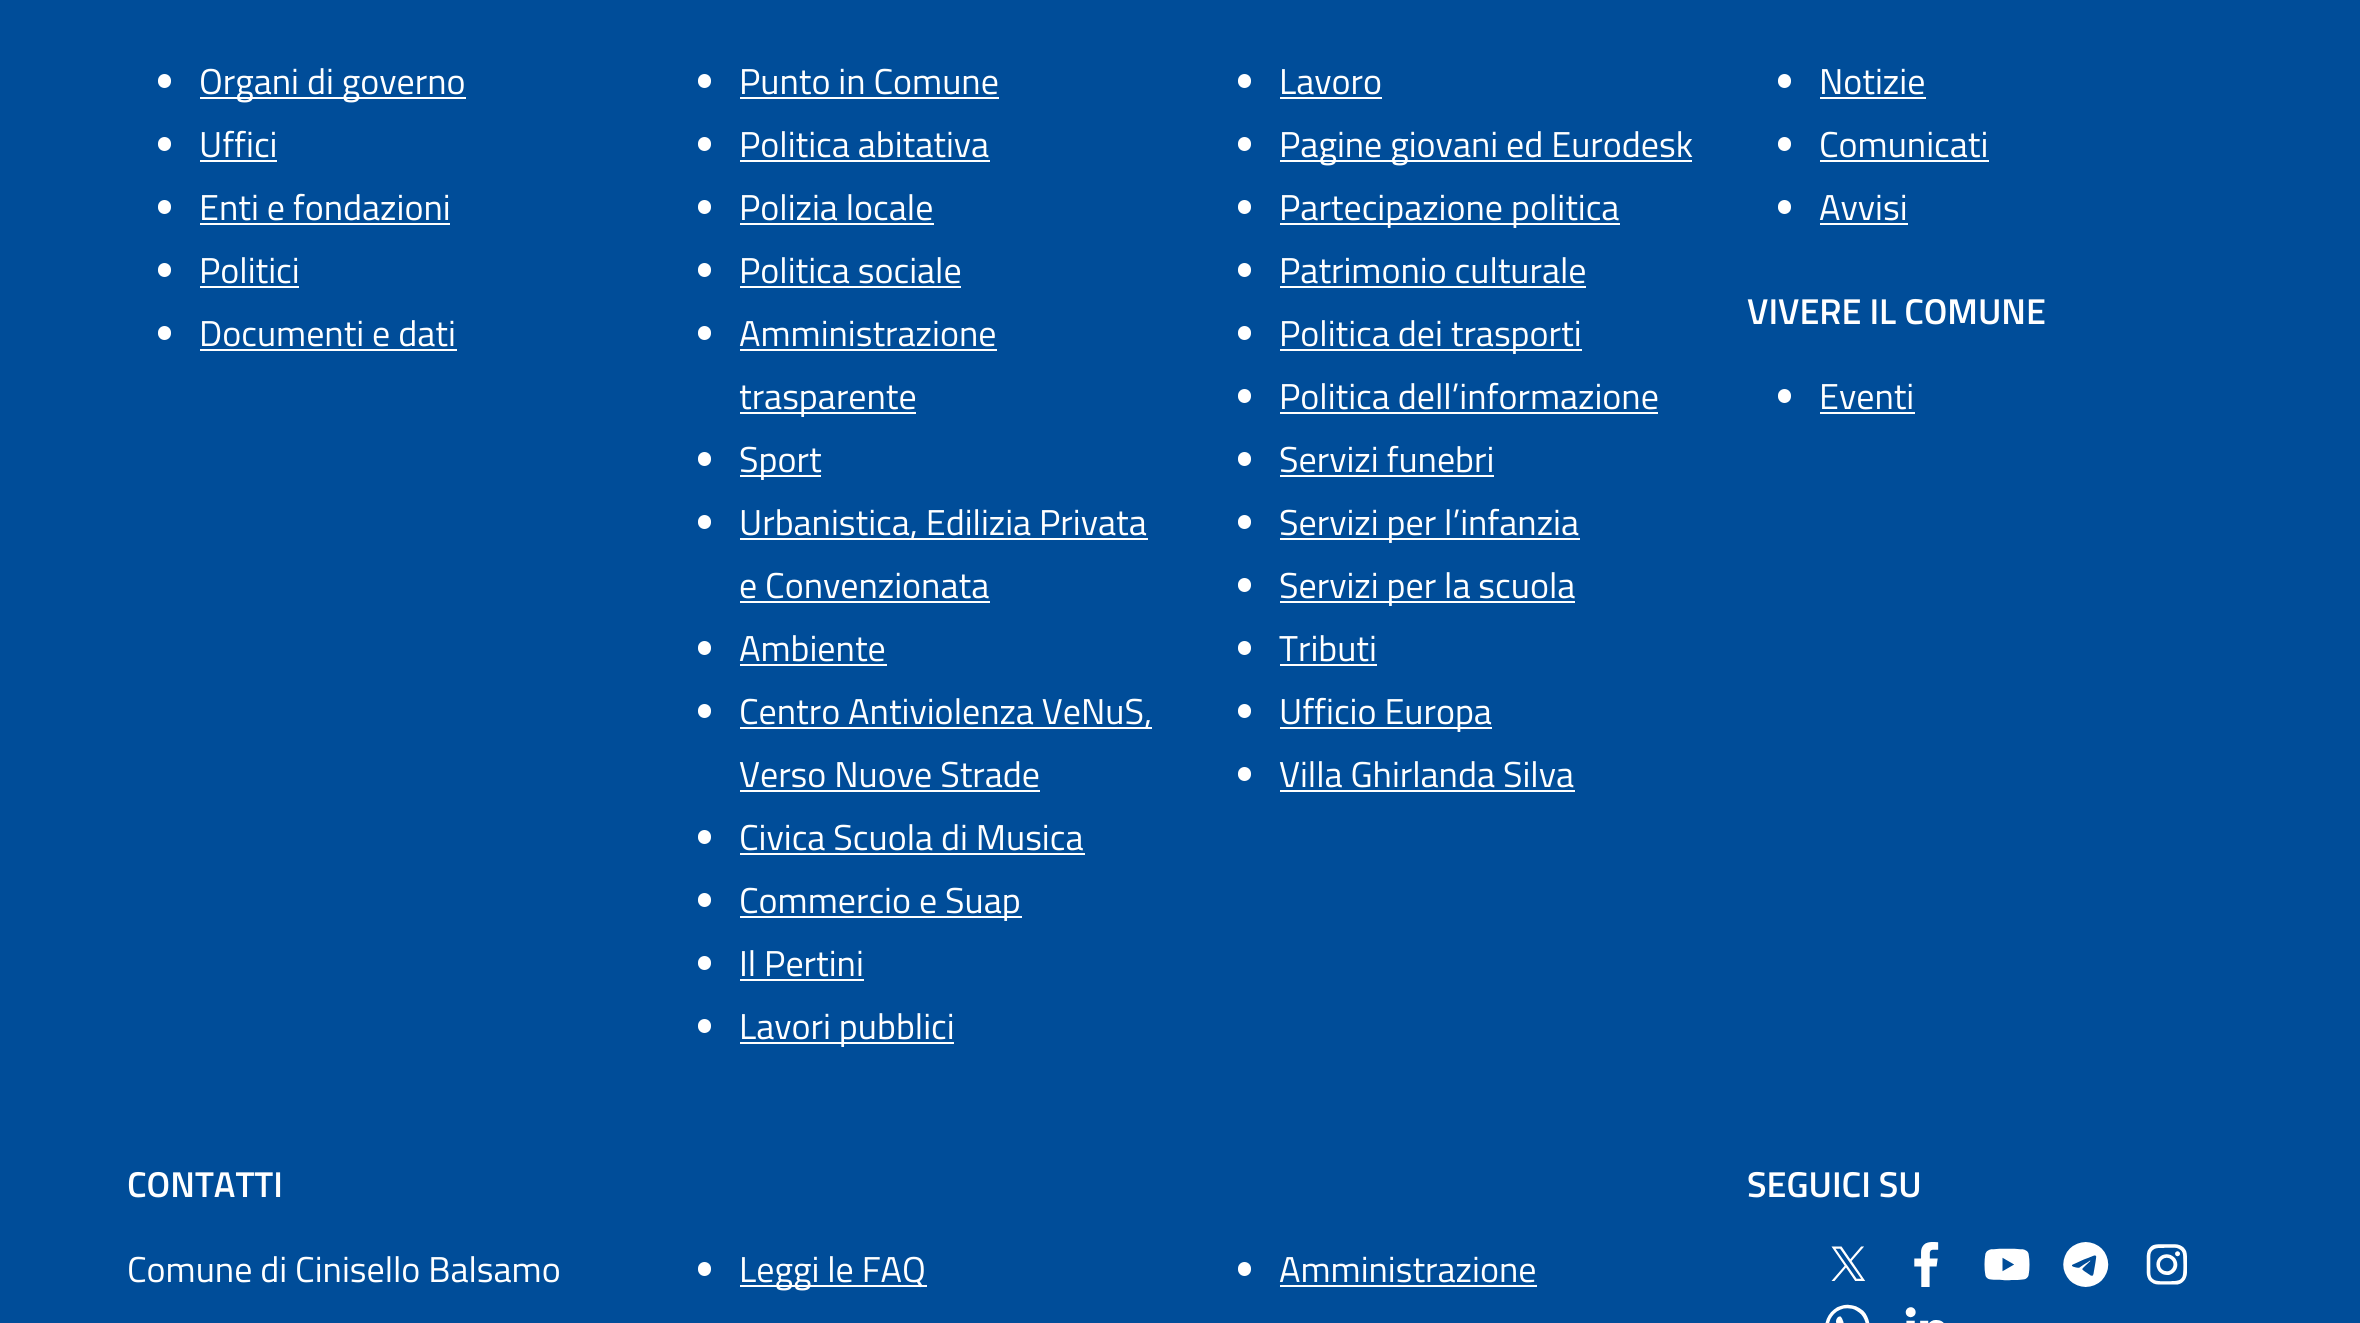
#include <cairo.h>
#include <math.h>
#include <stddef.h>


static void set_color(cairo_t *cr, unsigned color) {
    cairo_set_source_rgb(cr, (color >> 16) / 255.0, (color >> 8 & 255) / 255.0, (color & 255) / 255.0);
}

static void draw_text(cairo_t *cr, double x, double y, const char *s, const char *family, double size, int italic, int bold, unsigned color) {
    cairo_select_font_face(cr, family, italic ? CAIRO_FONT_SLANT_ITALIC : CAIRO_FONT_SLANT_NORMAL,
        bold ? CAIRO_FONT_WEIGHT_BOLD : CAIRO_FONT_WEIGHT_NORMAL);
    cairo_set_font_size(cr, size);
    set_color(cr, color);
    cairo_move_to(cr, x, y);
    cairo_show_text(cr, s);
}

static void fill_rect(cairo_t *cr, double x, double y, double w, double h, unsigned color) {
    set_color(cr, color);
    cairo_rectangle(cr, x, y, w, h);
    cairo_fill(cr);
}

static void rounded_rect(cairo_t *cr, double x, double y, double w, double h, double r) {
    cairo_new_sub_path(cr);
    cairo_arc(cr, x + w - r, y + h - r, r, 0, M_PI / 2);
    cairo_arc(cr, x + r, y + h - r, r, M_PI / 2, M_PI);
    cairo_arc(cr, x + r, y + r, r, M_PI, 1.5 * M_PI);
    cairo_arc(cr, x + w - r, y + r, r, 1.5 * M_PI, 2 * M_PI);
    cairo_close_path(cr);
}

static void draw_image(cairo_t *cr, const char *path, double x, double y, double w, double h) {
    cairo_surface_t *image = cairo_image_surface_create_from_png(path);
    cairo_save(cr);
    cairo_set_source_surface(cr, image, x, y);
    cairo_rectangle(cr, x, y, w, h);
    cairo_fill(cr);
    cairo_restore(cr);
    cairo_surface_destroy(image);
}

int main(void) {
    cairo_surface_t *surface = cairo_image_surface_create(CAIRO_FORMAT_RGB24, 2360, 1323);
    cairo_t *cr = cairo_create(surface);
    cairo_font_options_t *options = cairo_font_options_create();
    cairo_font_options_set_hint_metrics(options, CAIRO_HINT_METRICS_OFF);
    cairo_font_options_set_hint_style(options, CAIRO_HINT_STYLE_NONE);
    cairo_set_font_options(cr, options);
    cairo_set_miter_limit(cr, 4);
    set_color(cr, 0x004D99);
    cairo_paint(cr);
    set_color(cr, 0xFFFFFF);
    rounded_rect(cr, 158, 74, 13, 14, 6.5);
    cairo_fill(cr);
    fill_rect(cr, 200, 97, 266, 2, 0xFFFFFF);
    draw_text(cr, 199, 94, "Organi di governo", "Titillium Web", 36, 0, 0, 0xFFFFFF);
    rounded_rect(cr, 158, 137, 13, 14, 6.5);
    cairo_fill(cr);
    draw_text(cr, 199, 157, "Uffici", "Titillium Web", 36, 0, 0, 0xFFFFFF);
    fill_rect(cr, 200, 160, 77, 2, 0xFFFFFF);
    rounded_rect(cr, 158, 200, 13, 14, 6.5);
    cairo_fill(cr);
    draw_text(cr, 199, 220, "Enti e fondazioni", "Titillium Web", 36, 0, 0, 0xFFFFFF);
    fill_rect(cr, 200, 223, 250, 2, 0xFFFFFF);
    rounded_rect(cr, 158, 263, 13, 14, 6.5);
    cairo_fill(cr);
    draw_text(cr, 199, 283, "Politici", "Titillium Web", 36, 0, 0, 0xFFFFFF);
    fill_rect(cr, 200, 286, 99, 2, 0xFFFFFF);
    rounded_rect(cr, 158, 326, 13, 14, 6.5);
    cairo_fill(cr);
    draw_text(cr, 199, 346, "Documenti e dati", "Titillium Web", 36, 0, 0, 0xFFFFFF);
    fill_rect(cr, 200, 349, 257, 2, 0xFFFFFF);
    rounded_rect(cr, 698, 74, 13, 14, 6.5);
    cairo_fill(cr);
    draw_text(cr, 739, 94, "Punto in Comune", "Titillium Web", 36, 0, 0, 0xFFFFFF);
    fill_rect(cr, 740, 97, 259, 2, 0xFFFFFF);
    rounded_rect(cr, 698, 137, 13, 14, 6.5);
    cairo_fill(cr);
    draw_text(cr, 739, 157, "Politica abitativa", "Titillium Web", 36, 0, 0, 0xFFFFFF);
    fill_rect(cr, 740, 160, 250, 2, 0xFFFFFF);
    rounded_rect(cr, 698, 200, 13, 14, 6.5);
    cairo_fill(cr);
    draw_text(cr, 739, 220, "Polizia locale", "Titillium Web", 36, 0, 0, 0xFFFFFF);
    fill_rect(cr, 740, 223, 194, 2, 0xFFFFFF);
    rounded_rect(cr, 698, 263, 13, 14, 6.5);
    cairo_fill(cr);
    draw_text(cr, 739, 283, "Politica sociale", "Titillium Web", 36, 0, 0, 0xFFFFFF);
    fill_rect(cr, 740, 286, 221, 2, 0xFFFFFF);
    rounded_rect(cr, 698, 326, 13, 14, 6.5);
    cairo_fill(cr);
    draw_text(cr, 739, 346, "Amministrazione", "Titillium Web", 36, 0, 0, 0xFFFFFF);
    fill_rect(cr, 740, 349, 257, 2, 0xFFFFFF);
    fill_rect(cr, 740, 412, 176, 2, 0xFFFFFF);
    draw_text(cr, 739, 409, "trasparente", "Titillium Web", 36, 0, 0, 0xFFFFFF);
    rounded_rect(cr, 698, 452, 13, 14, 6.5);
    cairo_fill(cr);
    fill_rect(cr, 740, 475, 81, 2, 0xFFFFFF);
    draw_text(cr, 739, 472, "Sport", "Titillium Web", 36, 0, 0, 0xFFFFFF);
    rounded_rect(cr, 698, 515, 13, 14, 6.5);
    cairo_fill(cr);
    fill_rect(cr, 740, 538, 408, 2, 0xFFFFFF);
    draw_text(cr, 739, 535, "Urbanistica, Edilizia Privata", "Titillium Web", 36, 0, 0, 0xFFFFFF);
    draw_text(cr, 739, 598, "e Convenzionata", "Titillium Web", 36, 0, 0, 0xFFFFFF);
    fill_rect(cr, 740, 601, 250, 2, 0xFFFFFF);
    rounded_rect(cr, 698, 641, 13, 14, 6.5);
    cairo_fill(cr);
    draw_text(cr, 739, 661, "Ambiente", "Titillium Web", 36, 0, 0, 0xFFFFFF);
    fill_rect(cr, 740, 664, 147, 2, 0xFFFFFF);
    rounded_rect(cr, 698, 704, 13, 14, 6.5);
    cairo_fill(cr);
    fill_rect(cr, 740, 727, 412, 2, 0xFFFFFF);
    draw_text(cr, 739, 724, "Centro Antiviolenza VeNuS,", "Titillium Web", 36, 0, 0, 0xFFFFFF);
    draw_text(cr, 739, 787, "Verso Nuove Strade", "Titillium Web", 36, 0, 0, 0xFFFFFF);
    fill_rect(cr, 740, 790, 300, 2, 0xFFFFFF);
    rounded_rect(cr, 698, 830, 13, 14, 6.5);
    cairo_fill(cr);
    draw_text(cr, 739, 850, "Civica Scuola di Musica", "Titillium Web", 36, 0, 0, 0xFFFFFF);
    fill_rect(cr, 740, 853, 345, 2, 0xFFFFFF);
    rounded_rect(cr, 698, 893, 13, 14, 6.5);
    cairo_fill(cr);
    fill_rect(cr, 740, 916, 282, 2, 0xFFFFFF);
    draw_text(cr, 739, 913, "Commercio e Suap", "Titillium Web", 36, 0, 0, 0xFFFFFF);
    rounded_rect(cr, 698, 956, 13, 14, 6.5);
    cairo_fill(cr);
    draw_text(cr, 739, 976, "Il Pertini", "Titillium Web", 36, 0, 0, 0xFFFFFF);
    fill_rect(cr, 740, 979, 124, 2, 0xFFFFFF);
    rounded_rect(cr, 698, 1019, 13, 14, 6.5);
    cairo_fill(cr);
    fill_rect(cr, 740, 1042, 214, 2, 0xFFFFFF);
    draw_text(cr, 739, 1039, "Lavori pubblici", "Titillium Web", 36, 0, 0, 0xFFFFFF);
    rounded_rect(cr, 1238, 74, 13, 14, 6.5);
    cairo_fill(cr);
    draw_text(cr, 1279, 94, "Lavoro", "Titillium Web", 36, 0, 0, 0xFFFFFF);
    fill_rect(cr, 1280, 97, 102, 2, 0xFFFFFF);
    rounded_rect(cr, 1238, 137, 13, 14, 6.5);
    cairo_fill(cr);
    fill_rect(cr, 1280, 160, 412, 2, 0xFFFFFF);
    draw_text(cr, 1279, 157, "Pagine giovani ed Eurodesk", "Titillium Web", 36, 0, 0, 0xFFFFFF);
    rounded_rect(cr, 1238, 200, 13, 14, 6.5);
    cairo_fill(cr);
    fill_rect(cr, 1280, 223, 340, 2, 0xFFFFFF);
    draw_text(cr, 1279, 220, "Partecipazione politica", "Titillium Web", 36, 0, 0, 0xFFFFFF);
    rounded_rect(cr, 1238, 263, 13, 14, 6.5);
    cairo_fill(cr);
    draw_text(cr, 1279, 283, "Patrimonio culturale", "Titillium Web", 36, 0, 0, 0xFFFFFF);
    fill_rect(cr, 1280, 286, 306, 2, 0xFFFFFF);
    rounded_rect(cr, 1238, 326, 13, 14, 6.5);
    cairo_fill(cr);
    fill_rect(cr, 1280, 349, 302, 2, 0xFFFFFF);
    draw_text(cr, 1279, 346, "Politica dei trasporti", "Titillium Web", 36, 0, 0, 0xFFFFFF);
    rounded_rect(cr, 1238, 389, 13, 14, 6.5);
    cairo_fill(cr);
    draw_text(cr, 1279, 409, "Politica dell’informazione", "Titillium Web", 36, 0, 0, 0xFFFFFF);
    fill_rect(cr, 1280, 412, 378, 2, 0xFFFFFF);
    rounded_rect(cr, 1238, 452, 13, 14, 6.5);
    cairo_fill(cr);
    draw_text(cr, 1279, 472, "Servizi funebri", "Titillium Web", 36, 0, 0, 0xFFFFFF);
    fill_rect(cr, 1280, 475, 214, 2, 0xFFFFFF);
    rounded_rect(cr, 1238, 515, 13, 14, 6.5);
    cairo_fill(cr);
    fill_rect(cr, 1280, 538, 300, 2, 0xFFFFFF);
    draw_text(cr, 1279, 535, "Servizi per l’infanzia", "Titillium Web", 36, 0, 0, 0xFFFFFF);
    rounded_rect(cr, 1238, 578, 13, 14, 6.5);
    cairo_fill(cr);
    fill_rect(cr, 1280, 601, 295, 2, 0xFFFFFF);
    draw_text(cr, 1279, 598, "Servizi per la scuola", "Titillium Web", 36, 0, 0, 0xFFFFFF);
    rounded_rect(cr, 1238, 641, 13, 14, 6.5);
    cairo_fill(cr);
    draw_text(cr, 1279, 661, "Tributi", "Titillium Web", 36, 0, 0, 0xFFFFFF);
    fill_rect(cr, 1280, 664, 97, 2, 0xFFFFFF);
    rounded_rect(cr, 1238, 704, 13, 14, 6.5);
    cairo_fill(cr);
    fill_rect(cr, 1280, 727, 212, 2, 0xFFFFFF);
    draw_text(cr, 1279, 724, "Ufficio Europa", "Titillium Web", 36, 0, 0, 0xFFFFFF);
    rounded_rect(cr, 1238, 767, 13, 14, 6.5);
    cairo_fill(cr);
    draw_text(cr, 1279, 787, "Villa Ghirlanda Silva", "Titillium Web", 36, 0, 0, 0xFFFFFF);
    fill_rect(cr, 1280, 790, 295, 2, 0xFFFFFF);
    rounded_rect(cr, 1778, 74, 13, 14, 6.5);
    cairo_fill(cr);
    draw_text(cr, 1819, 94, "Notizie", "Titillium Web", 36, 0, 0, 0xFFFFFF);
    fill_rect(cr, 1820, 97, 106, 2, 0xFFFFFF);
    rounded_rect(cr, 1778, 137, 13, 14, 6.5);
    cairo_fill(cr);
    draw_text(cr, 1819, 157, "Comunicati", "Titillium Web", 36, 0, 0, 0xFFFFFF);
    fill_rect(cr, 1820, 160, 169, 2, 0xFFFFFF);
    rounded_rect(cr, 1778, 200, 13, 14, 6.5);
    cairo_fill(cr);
    draw_text(cr, 1819, 220, "Avvisi", "Titillium Web", 36, 0, 0, 0xFFFFFF);
    fill_rect(cr, 1820, 223, 88, 2, 0xFFFFFF);
    draw_text(cr, 1747, 324, "VIVERE IL COMUNE", "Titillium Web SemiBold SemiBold", 36, 0, 0, 0xFFFFFF);
    rounded_rect(cr, 1778, 389, 13, 14, 6.5);
    cairo_fill(cr);
    draw_text(cr, 1819, 409, "Eventi", "Titillium Web", 36, 0, 0, 0xFFFFFF);
    fill_rect(cr, 1820, 412, 95, 2, 0xFFFFFF);
    draw_text(cr, 127, 1197, "CONTATTI", "Titillium Web SemiBold SemiBold", 36, 0, 0, 0xFFFFFF);
    draw_text(cr, 127, 1282, "Comune di Cinisello Balsamo", "Titillium Web", 36, 0, 0, 0xFFFFFF);
    rounded_rect(cr, 698, 1262, 13, 14, 6.5);
    cairo_fill(cr);
    fill_rect(cr, 740, 1285, 187, 2, 0xFFFFFF);
    draw_text(cr, 739, 1282, "Leggi le FAQ", "Titillium Web", 36, 0, 0, 0xFFFFFF);
    rounded_rect(cr, 1238, 1262, 13, 14, 6.5);
    cairo_fill(cr);
    draw_text(cr, 1279, 1282, "Amministrazione", "Titillium Web", 36, 0, 0, 0xFFFFFF);
    fill_rect(cr, 1280, 1285, 257, 2, 0xFFFFFF);
    draw_text(cr, 1747, 1197, "SEGUICI SU", "Titillium Web SemiBold SemiBold", 36, 0, 0, 0xFFFFFF);
    draw_image(cr, "assets/img1.png", 1831, 1246, 35, 35);
    draw_image(cr, "assets/img2.png", 1914, 1242, 25, 45);
    draw_image(cr, "assets/img3.png", 1984, 1248, 46, 33);
    draw_image(cr, "assets/img4.png", 2063, 1242, 46, 45);
    draw_image(cr, "assets/img5.png", 2146, 1244, 41, 41);
    draw_image(cr, "assets/img6.png", 1825, 1304, 45, 19);
    draw_image(cr, "assets/img7.png", 1905, 1307, 39, 16);
    cairo_surface_write_to_png(surface, "output.png");
    cairo_font_options_destroy(options);
    cairo_destroy(cr);
    cairo_surface_destroy(surface);
    return 0;
}
